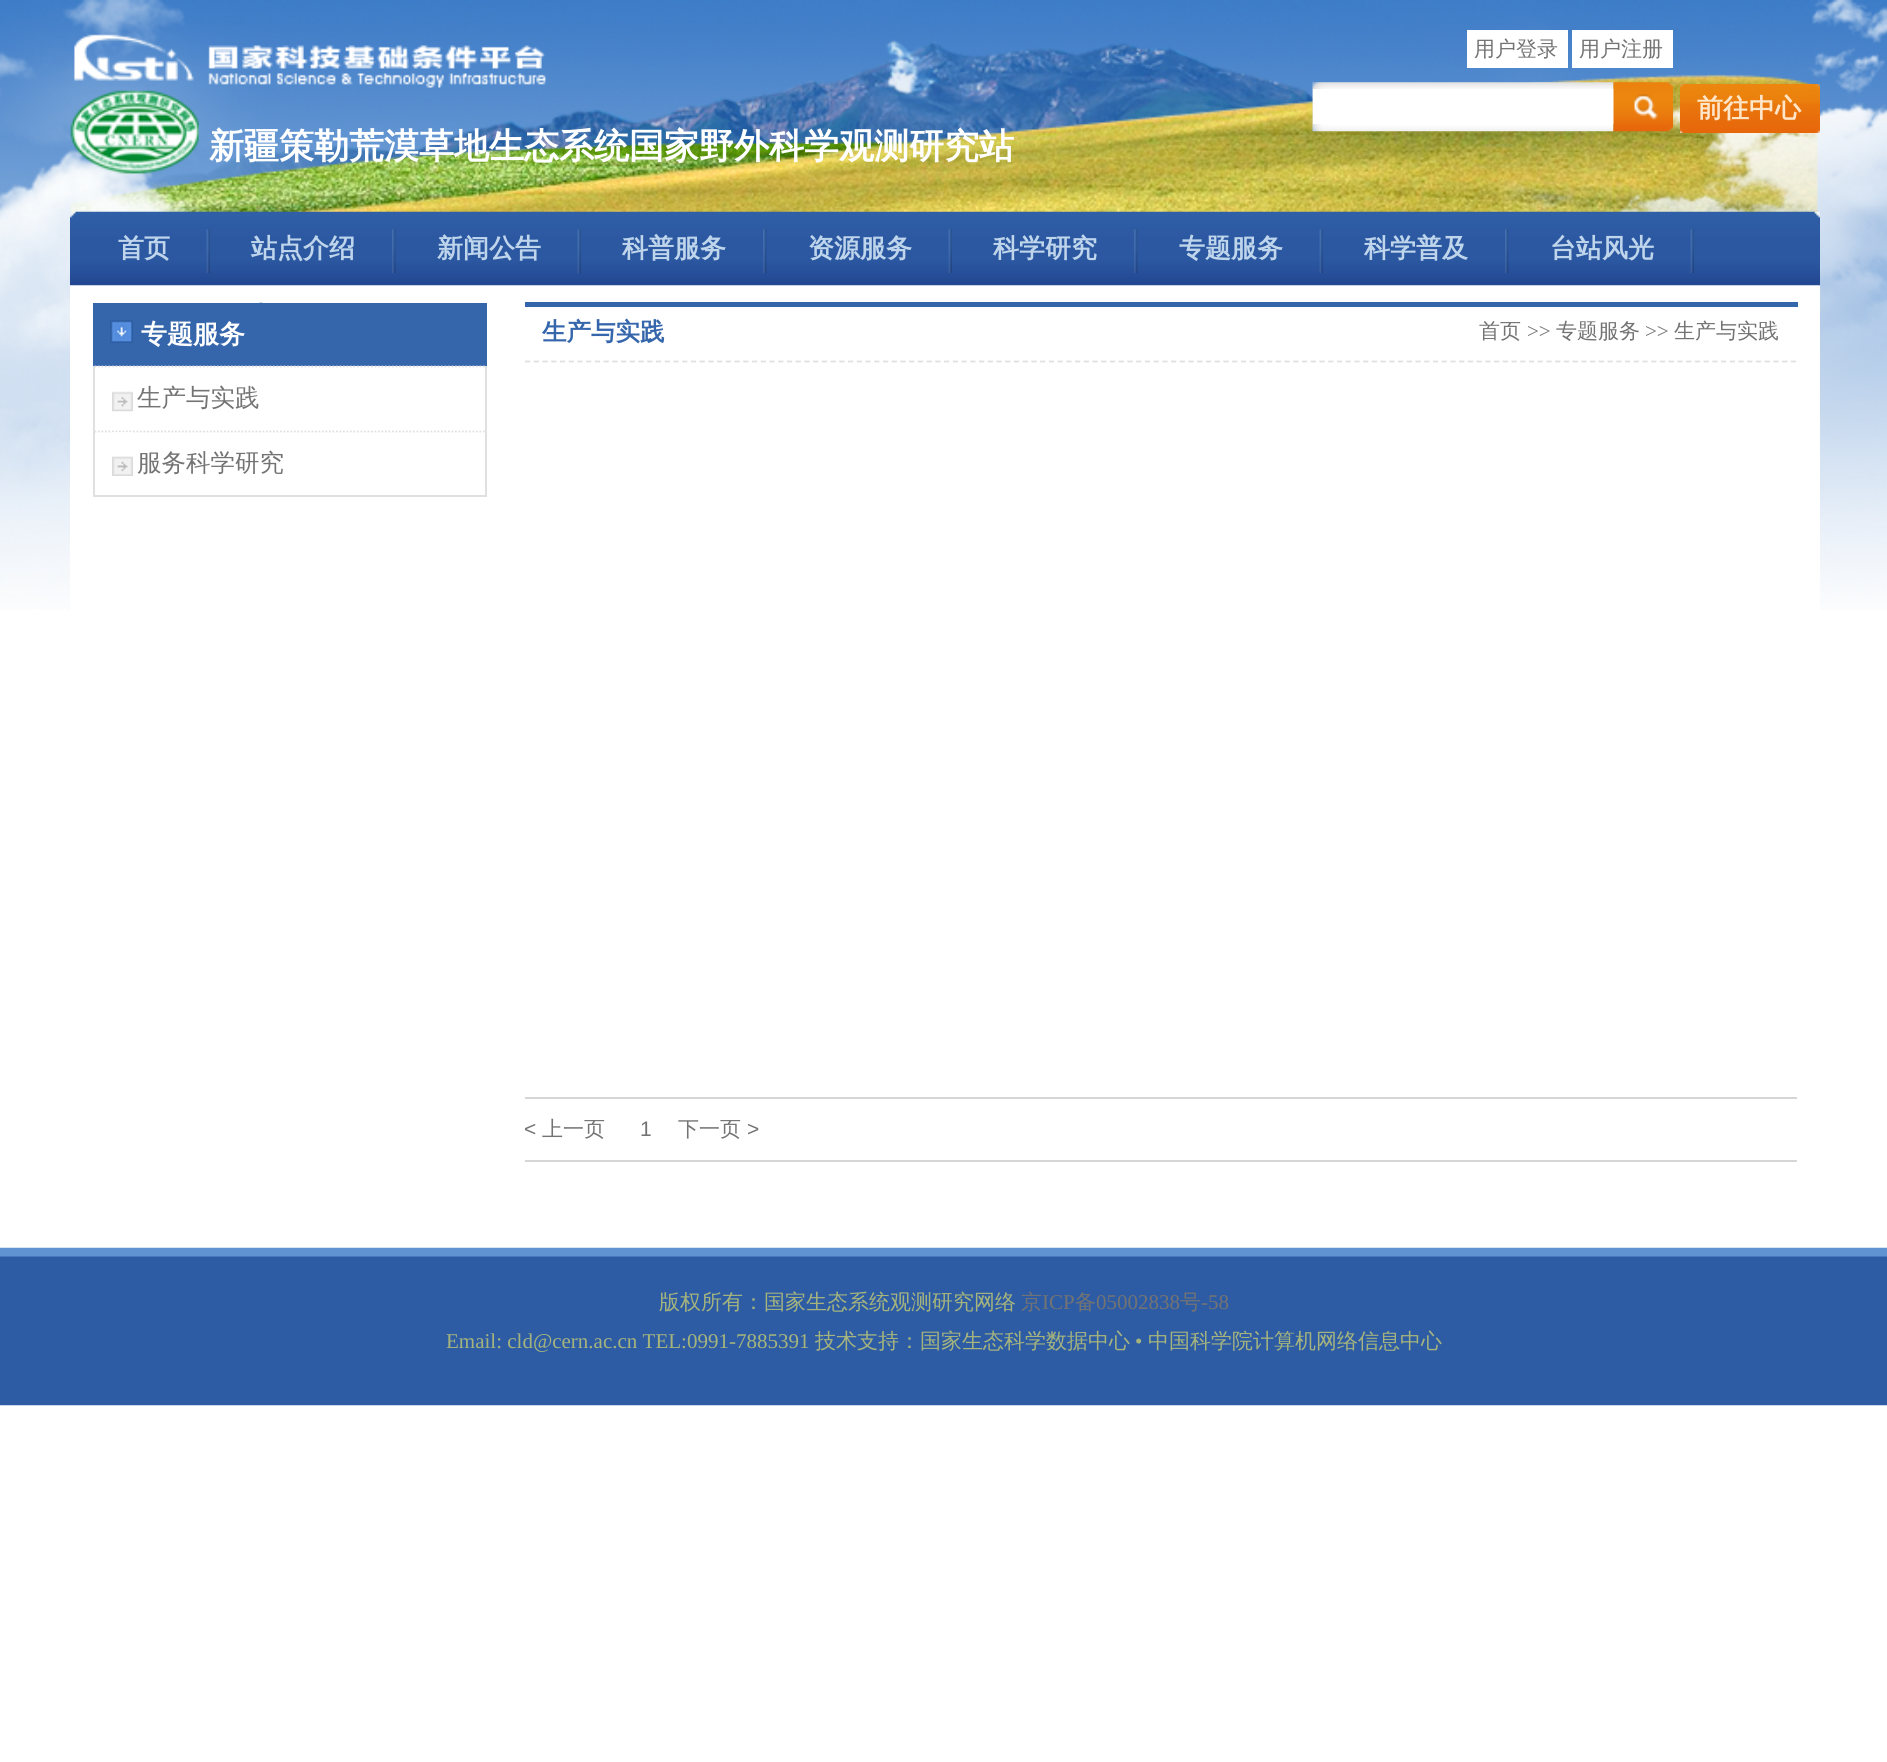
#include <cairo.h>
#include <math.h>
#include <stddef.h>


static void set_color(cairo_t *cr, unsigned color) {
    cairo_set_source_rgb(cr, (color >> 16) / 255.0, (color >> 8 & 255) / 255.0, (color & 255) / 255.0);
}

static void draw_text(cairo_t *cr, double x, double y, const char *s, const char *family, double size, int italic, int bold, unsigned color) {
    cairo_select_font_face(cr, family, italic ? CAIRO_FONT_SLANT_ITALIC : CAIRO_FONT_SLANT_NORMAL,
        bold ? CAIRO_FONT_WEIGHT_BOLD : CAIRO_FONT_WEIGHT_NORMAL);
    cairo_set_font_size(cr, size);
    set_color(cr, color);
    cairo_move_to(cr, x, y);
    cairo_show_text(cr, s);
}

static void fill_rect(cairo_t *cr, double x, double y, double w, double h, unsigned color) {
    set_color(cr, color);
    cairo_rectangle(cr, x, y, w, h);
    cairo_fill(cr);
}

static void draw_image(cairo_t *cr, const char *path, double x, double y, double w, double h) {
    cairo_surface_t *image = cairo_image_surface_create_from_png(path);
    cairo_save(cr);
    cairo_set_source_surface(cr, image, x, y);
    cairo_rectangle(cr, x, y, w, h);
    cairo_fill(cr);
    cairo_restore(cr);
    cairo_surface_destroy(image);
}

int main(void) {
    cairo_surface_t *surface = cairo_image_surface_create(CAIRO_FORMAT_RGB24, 1887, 1762);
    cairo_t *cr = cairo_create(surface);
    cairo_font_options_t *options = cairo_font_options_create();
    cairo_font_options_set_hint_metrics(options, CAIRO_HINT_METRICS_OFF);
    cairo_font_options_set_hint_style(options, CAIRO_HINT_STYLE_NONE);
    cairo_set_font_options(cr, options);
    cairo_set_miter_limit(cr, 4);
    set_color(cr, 0xFFFFFF);
    cairo_paint(cr);
    draw_image(cr, "assets/img1.png", 0, 0, 1887, 610);
    fill_rect(cr, 1467, 30, 101, 38, 0xFFFFFF);
    draw_text(cr, 1474, 56, "用户登录", "WenQuanYi Zen Hei Medium", 21, 0, 0, 0x737373);
    fill_rect(cr, 1572, 30, 101, 38, 0xFFFFFF);
    draw_text(cr, 1579, 56, "用户注册", "WenQuanYi Zen Hei Medium", 21, 0, 0, 0x737373);
    draw_image(cr, "assets/img2.png", 1312, 82, 302, 50);
    fill_rect(cr, 1313, 89, 301, 35, 0xFFFFFF);
    draw_image(cr, "assets/img3.png", 1613, 82, 60, 50);
    draw_image(cr, "assets/img4.png", 1680, 84, 140, 49);
    draw_text(cr, 1697, 117, "前往中心", "WenQuanYi Zen Hei", 26, 0, 1, 0xFFE6C9);
    draw_text(cr, 209, 158, "新疆策勒荒漠草地生态系统国家野外科学观测研究站", "WenQuanYi Zen Hei", 35, 0, 1, 0xFFFFFF);
    fill_rect(cr, 70, 285, 1750, 325, 0xFFFFFF);
    draw_image(cr, "assets/img5.png", 70, 211, 7, 75);
    draw_image(cr, "assets/img6.png", 77, 211, 1736, 75);
    draw_image(cr, "assets/img7.png", 206, 229, 4, 44);
    draw_text(cr, 118, 257, "首页", "WenQuanYi Zen Hei", 26, 0, 1, 0xBED5EC);
    draw_image(cr, "assets/img8.png", 392, 229, 4, 44);
    draw_text(cr, 251, 257, "站点介绍", "WenQuanYi Zen Hei", 26, 0, 1, 0xBED5EC);
    draw_image(cr, "assets/img7.png", 577, 229, 4, 44);
    draw_text(cr, 437, 257, "新闻公告", "WenQuanYi Zen Hei", 26, 0, 1, 0xBED5EC);
    draw_image(cr, "assets/img8.png", 763, 229, 4, 44);
    draw_text(cr, 622, 257, "科普服务", "WenQuanYi Zen Hei", 26, 0, 1, 0xBED5EC);
    draw_image(cr, "assets/img7.png", 948, 229, 4, 44);
    draw_text(cr, 808, 257, "资源服务", "WenQuanYi Zen Hei", 26, 0, 1, 0xBED5EC);
    draw_image(cr, "assets/img8.png", 1134, 229, 4, 44);
    draw_text(cr, 993, 257, "科学研究", "WenQuanYi Zen Hei", 26, 0, 1, 0xBED5EC);
    draw_image(cr, "assets/img7.png", 1319, 229, 4, 44);
    draw_text(cr, 1179, 257, "专题服务", "WenQuanYi Zen Hei", 26, 0, 1, 0xBED5EC);
    draw_image(cr, "assets/img8.png", 1505, 229, 4, 44);
    draw_text(cr, 1364, 257, "科学普及", "WenQuanYi Zen Hei", 26, 0, 1, 0xBED5EC);
    draw_image(cr, "assets/img7.png", 1690, 229, 4, 44);
    draw_text(cr, 1550, 257, "台站风光", "WenQuanYi Zen Hei", 26, 0, 1, 0xBED5EC);
    draw_image(cr, "assets/img9.png", 259, 302, 4, 1);
    draw_image(cr, "assets/img10.png", 1813, 211, 7, 75);
    fill_rect(cr, 93, 303, 394, 63, 0x3566AC);
    draw_image(cr, "assets/img11.png", 110, 320, 23, 23);
    draw_text(cr, 141, 343, "专题服务", "WenQuanYi Zen Hei", 26, 0, 1, 0xFFFFFF);
    fill_rect(cr, 485, 366, 2, 131, 0xE0E0E1);
    fill_rect(cr, 93, 495, 394, 2, 0xE0E0E1);
    fill_rect(cr, 93, 366, 2, 131, 0xE0E0E1);
    cairo_new_path(cr);
    cairo_move_to(cr, 94.5, 366.5);
    cairo_line_to(cr, 485, 366.5);
    cairo_set_line_width(cr, 1.8);
    cairo_set_dash(cr, (double[]){1.75, 1.75}, 2, 0);
    cairo_stroke(cr);
    draw_image(cr, "assets/img12.png", 112, 367, 21, 45);
    draw_text(cr, 137, 406, "生产与实践", "WenQuanYi Zen Hei Medium", 24.5, 0, 0, 0x737373);
    cairo_new_path(cr);
    cairo_move_to(cr, 94.5, 431.5);
    cairo_line_to(cr, 485, 431.5);
    set_color(cr, 0xE0E0E1);
    cairo_stroke(cr);
    draw_image(cr, "assets/img13.png", 112, 432, 21, 44);
    draw_text(cr, 137, 471, "服务科学研究", "WenQuanYi Zen Hei Medium", 24.5, 0, 0, 0x737373);
    fill_rect(cr, 525, 302, 1273, 5, 0x3566AC);
    cairo_new_path(cr);
    cairo_move_to(cr, 525, 361.5);
    cairo_line_to(cr, 1797, 361.5);
    set_color(cr, 0xE0E0E1);
    cairo_set_dash(cr, (double[]){5.25, 3.48}, 2, 0);
    cairo_stroke(cr);
    draw_text(cr, 542, 340, "生产与实践", "WenQuanYi Zen Hei", 24.5, 0, 1, 0x3566AC);
    draw_text(cr, 1479, 338, "首页", "WenQuanYi Zen Hei Medium", 21, 0, 0, 0x737373);
    draw_text(cr, 1527, 338, ">>", "Liberation Serif", 21, 0, 0, 0x737373);
    draw_text(cr, 1556, 338, "专题服务", "WenQuanYi Zen Hei Medium", 21, 0, 0, 0x737373);
    draw_text(cr, 1645, 338, ">>", "Liberation Serif", 21, 0, 0, 0x737373);
    draw_text(cr, 1674, 338, "生产与实践", "WenQuanYi Zen Hei Medium", 21, 0, 0, 0x737373);
    fill_rect(cr, 525, 1097, 1272, 2, 0xD6D6D6);
    fill_rect(cr, 525, 1160, 1272, 2, 0xD6D6D6);
    draw_text(cr, 524, 1136, "<", "Liberation Sans", 21, 0, 0, 0x737373);
    draw_text(cr, 542, 1136, "上一页", "WenQuanYi Zen Hei Medium", 21, 0, 0, 0x737373);
    draw_text(cr, 640, 1136, "1", "Liberation Sans", 21, 0, 0, 0x737373);
    draw_text(cr, 678, 1136, "下一页", "WenQuanYi Zen Hei Medium", 21, 0, 0, 0x737373);
    draw_text(cr, 747, 1136, ">", "Liberation Sans", 21, 0, 0, 0x737373);
    draw_image(cr, "assets/img14.png", 0, 1247, 1887, 159);
    draw_text(cr, 659, 1309, "版权所有：国家生态系统观测研究网络", "WenQuanYi Zen Hei Medium", 21, 0, 0, 0xA5B47D);
    draw_text(cr, 1021, 1309, "京", "WenQuanYi Zen Hei Medium", 21, 0, 0, 0x737373);
    draw_text(cr, 1042, 1309, "ICP", "Liberation Serif", 21, 0, 0, 0x737373);
    draw_text(cr, 1075, 1309, "备", "WenQuanYi Zen Hei Medium", 21, 0, 0, 0x737373);
    draw_text(cr, 1096, 1309, "05002838", "Liberation Serif", 21, 0, 0, 0x737373);
    draw_text(cr, 1180, 1309, "号", "WenQuanYi Zen Hei Medium", 21, 0, 0, 0x737373);
    draw_text(cr, 1201, 1309, "-58", "Liberation Serif", 21, 0, 0, 0x737373);
    draw_text(cr, 446, 1348, "Email: cld@cern.ac.cn TEL:0991-7885391", "Liberation Serif", 21, 0, 0, 0xA5B47D);
    draw_text(cr, 815, 1348, "技术支持：国家生态科学数据中心", "WenQuanYi Zen Hei Medium", 21, 0, 0, 0xA5B47D);
    draw_text(cr, 1135, 1348, "•", "Liberation Serif", 21, 0, 0, 0xA5B47D);
    draw_text(cr, 1148, 1348, "中国科学院计算机网络信息中心", "WenQuanYi Zen Hei Medium", 21, 0, 0, 0xA5B47D);
    cairo_surface_write_to_png(surface, "output.png");
    cairo_font_options_destroy(options);
    cairo_destroy(cr);
    cairo_surface_destroy(surface);
    return 0;
}
